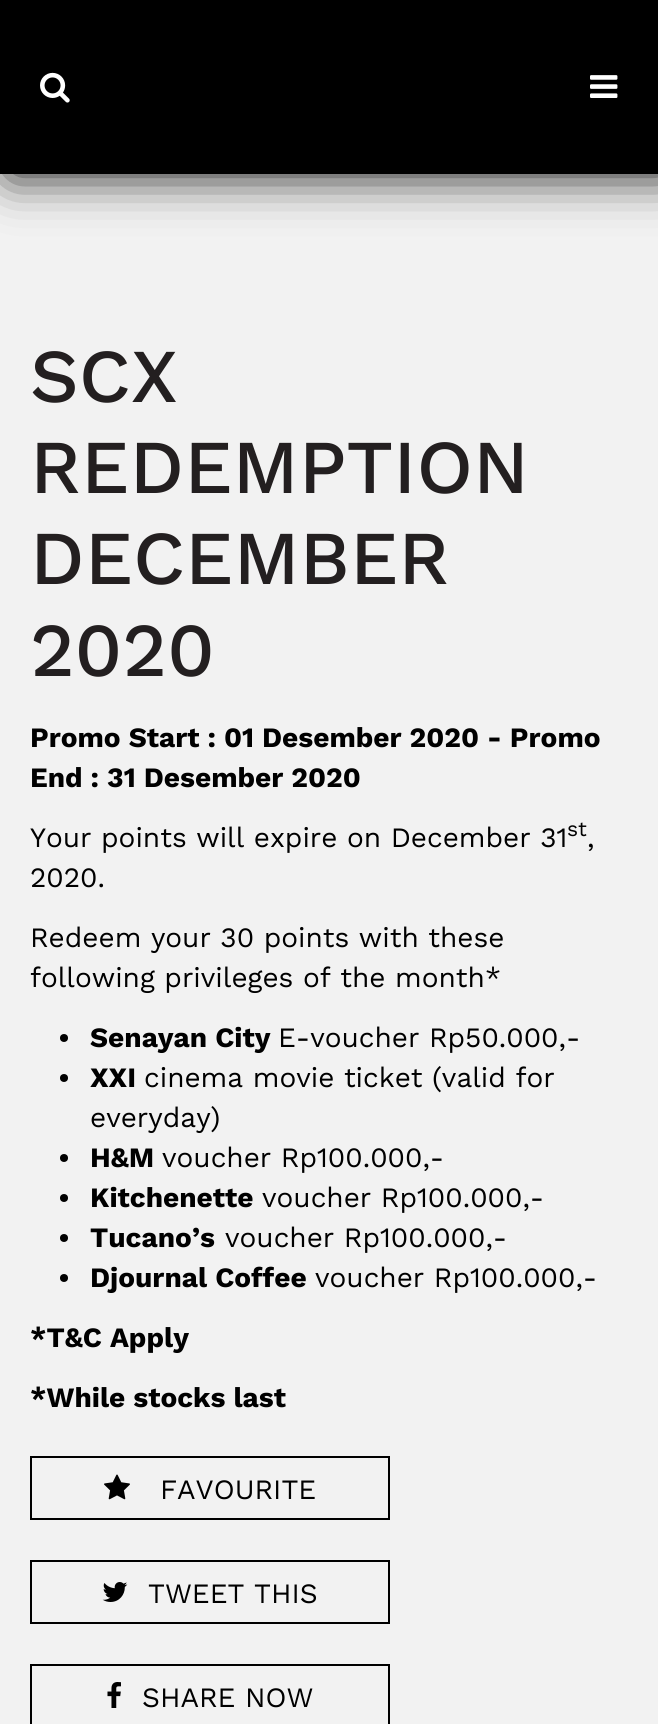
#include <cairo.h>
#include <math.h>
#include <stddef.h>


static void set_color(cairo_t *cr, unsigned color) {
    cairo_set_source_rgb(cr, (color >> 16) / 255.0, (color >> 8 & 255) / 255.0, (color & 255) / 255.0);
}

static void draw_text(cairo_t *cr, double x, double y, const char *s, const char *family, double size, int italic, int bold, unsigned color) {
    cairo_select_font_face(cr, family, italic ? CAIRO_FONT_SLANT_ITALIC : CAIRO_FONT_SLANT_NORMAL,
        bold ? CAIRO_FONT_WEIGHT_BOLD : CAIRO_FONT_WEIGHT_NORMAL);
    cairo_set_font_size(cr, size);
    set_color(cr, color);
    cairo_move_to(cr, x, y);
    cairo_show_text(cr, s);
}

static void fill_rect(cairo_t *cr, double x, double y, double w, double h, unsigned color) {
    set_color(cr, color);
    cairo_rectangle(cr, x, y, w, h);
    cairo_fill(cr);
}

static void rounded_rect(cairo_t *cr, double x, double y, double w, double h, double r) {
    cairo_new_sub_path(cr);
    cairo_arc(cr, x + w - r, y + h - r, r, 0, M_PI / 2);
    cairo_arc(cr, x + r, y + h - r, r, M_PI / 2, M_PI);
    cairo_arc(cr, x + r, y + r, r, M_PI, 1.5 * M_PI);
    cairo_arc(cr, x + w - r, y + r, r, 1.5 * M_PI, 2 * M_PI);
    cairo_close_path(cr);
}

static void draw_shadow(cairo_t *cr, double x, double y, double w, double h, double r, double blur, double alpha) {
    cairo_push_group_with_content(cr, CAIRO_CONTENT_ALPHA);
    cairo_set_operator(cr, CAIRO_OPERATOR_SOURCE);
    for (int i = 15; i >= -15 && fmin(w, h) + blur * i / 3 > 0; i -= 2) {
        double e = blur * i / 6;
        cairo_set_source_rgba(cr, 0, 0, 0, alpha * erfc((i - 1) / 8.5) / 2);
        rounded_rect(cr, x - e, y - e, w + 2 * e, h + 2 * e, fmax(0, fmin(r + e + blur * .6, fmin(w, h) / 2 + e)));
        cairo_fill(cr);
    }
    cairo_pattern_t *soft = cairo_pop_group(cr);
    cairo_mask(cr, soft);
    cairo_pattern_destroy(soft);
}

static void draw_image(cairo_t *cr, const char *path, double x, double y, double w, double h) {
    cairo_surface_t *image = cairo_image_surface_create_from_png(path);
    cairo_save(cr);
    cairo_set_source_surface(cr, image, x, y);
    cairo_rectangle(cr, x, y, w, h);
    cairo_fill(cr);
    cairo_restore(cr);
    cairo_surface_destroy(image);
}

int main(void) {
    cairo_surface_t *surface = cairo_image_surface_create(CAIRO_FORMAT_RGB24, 658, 1724);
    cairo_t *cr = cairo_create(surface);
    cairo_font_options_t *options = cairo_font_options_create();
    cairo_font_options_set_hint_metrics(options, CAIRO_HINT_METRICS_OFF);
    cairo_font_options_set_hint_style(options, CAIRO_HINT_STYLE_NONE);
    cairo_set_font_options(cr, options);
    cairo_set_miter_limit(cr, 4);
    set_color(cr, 0xF2F2F2);
    cairo_paint(cr);
    set_color(cr, 0x0A0A09);
    draw_shadow(cr, 10, 0, 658, 174, 0, 25, 1);
    fill_rect(cr, 0, 0, 658, 174, 0x000000);
    draw_image(cr, "assets/img1.png", 40, 72, 30, 31);
    draw_image(cr, "assets/img2.png", 590, 75, 28, 23);
    draw_text(cr, 30, 402, "SCX", "Work Sans Medium", 76, 0, 0, 0x231F20);
    draw_text(cr, 30, 493, "REDEMPTION", "Work Sans Medium", 76, 0, 0, 0x231F20);
    draw_text(cr, 30, 584, "DECEMBER", "Work Sans Medium", 76, 0, 0, 0x231F20);
    draw_text(cr, 30, 676, "2020", "Work Sans Medium", 76, 0, 0, 0x231F20);
    draw_text(cr, 30, 747, "Promo Start : 01 Desember 2020 - Promo", "Work Sans", 28, 0, 1, 0x000000);
    draw_text(cr, 30, 787, "End : 31 Desember 2020", "Work Sans", 28, 0, 1, 0x000000);
    draw_text(cr, 30, 847, "Your points will expire on December 31", "Work Sans", 28, 0, 0, 0x000000);
    draw_text(cr, 567, 836, "st", "Work Sans", 21, 0, 0, 0x000000);
    draw_text(cr, 587, 847, ",", "Work Sans", 28, 0, 0, 0x000000);
    draw_text(cr, 30, 887, "2020.", "Work Sans", 28, 0, 0, 0x000000);
    draw_text(cr, 30, 947, "Redeem your 30 points with these", "Work Sans", 28, 0, 0, 0x000000);
    draw_text(cr, 30, 987, "following privileges of the month*", "Work Sans", 28, 0, 0, 0x000000);
    cairo_new_path(cr);
    cairo_arc(cr, 64, 1038, 4, 0, 2 * M_PI);
    cairo_fill(cr);
    draw_text(cr, 90, 1047, "Senayan City", "Work Sans", 28, 0, 1, 0x000000);
    draw_text(cr, 278, 1047, "E-voucher Rp50.000,-", "Work Sans", 28, 0, 0, 0x000000);
    cairo_new_path(cr);
    cairo_arc(cr, 64, 1078, 4, 0, 2 * M_PI);
    cairo_fill(cr);
    draw_text(cr, 90, 1087, "XXI", "Work Sans", 28, 0, 1, 0x000000);
    draw_text(cr, 144, 1087, "cinema movie ticket (valid for", "Work Sans", 28, 0, 0, 0x000000);
    draw_text(cr, 90, 1127, "everyday)", "Work Sans", 28, 0, 0, 0x000000);
    cairo_new_path(cr);
    cairo_arc(cr, 64, 1158, 4, 0, 2 * M_PI);
    cairo_fill(cr);
    draw_text(cr, 90, 1167, "H&M", "Work Sans", 28, 0, 1, 0x000000);
    draw_text(cr, 162, 1167, "voucher Rp100.000,-", "Work Sans", 28, 0, 0, 0x000000);
    cairo_new_path(cr);
    cairo_arc(cr, 64, 1198, 4, 0, 2 * M_PI);
    cairo_fill(cr);
    draw_text(cr, 90, 1207, "Kitchenette", "Work Sans", 28, 0, 1, 0x000000);
    draw_text(cr, 262, 1207, "voucher Rp100.000,-", "Work Sans", 28, 0, 0, 0x000000);
    cairo_new_path(cr);
    cairo_arc(cr, 64, 1238, 4, 0, 2 * M_PI);
    cairo_fill(cr);
    draw_text(cr, 90, 1247, "Tucano’s", "Work Sans", 28, 0, 1, 0x000000);
    draw_text(cr, 225, 1247, "voucher Rp100.000,-", "Work Sans", 28, 0, 0, 0x000000);
    cairo_new_path(cr);
    cairo_arc(cr, 64, 1278, 4, 0, 2 * M_PI);
    cairo_fill(cr);
    draw_text(cr, 90, 1287, "Djournal Coffee", "Work Sans", 28, 0, 1, 0x000000);
    draw_text(cr, 315, 1287, "voucher Rp100.000,-", "Work Sans", 28, 0, 0, 0x000000);
    draw_text(cr, 30, 1347, "*T&C Apply", "Work Sans", 28, 0, 1, 0x000000);
    draw_text(cr, 30, 1407, "*While stocks last", "Work Sans", 28, 0, 1, 0x000000);
    cairo_rectangle(cr, 31, 1457, 358, 62);
    cairo_stroke(cr);
    draw_image(cr, "assets/img3.png", 104, 1474, 26, 26);
    draw_text(cr, 160, 1499, "FAVOURITE", "Work Sans", 28, 0, 0, 0x000000);
    cairo_rectangle(cr, 31, 1561, 358, 62);
    cairo_stroke(cr);
    draw_image(cr, "assets/img4.png", 102, 1582, 26, 20);
    draw_text(cr, 148, 1603, "TWEET THIS", "Work Sans", 28, 0, 0, 0x000000);
    cairo_rectangle(cr, 31, 1665, 358, 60);
    cairo_stroke(cr);
    draw_image(cr, "assets/img5.png", 107, 1682, 14, 26);
    draw_text(cr, 142, 1707, "SHARE NOW", "Work Sans", 28, 0, 0, 0x000000);
    cairo_surface_write_to_png(surface, "output.png");
    cairo_font_options_destroy(options);
    cairo_destroy(cr);
    cairo_surface_destroy(surface);
    return 0;
}
